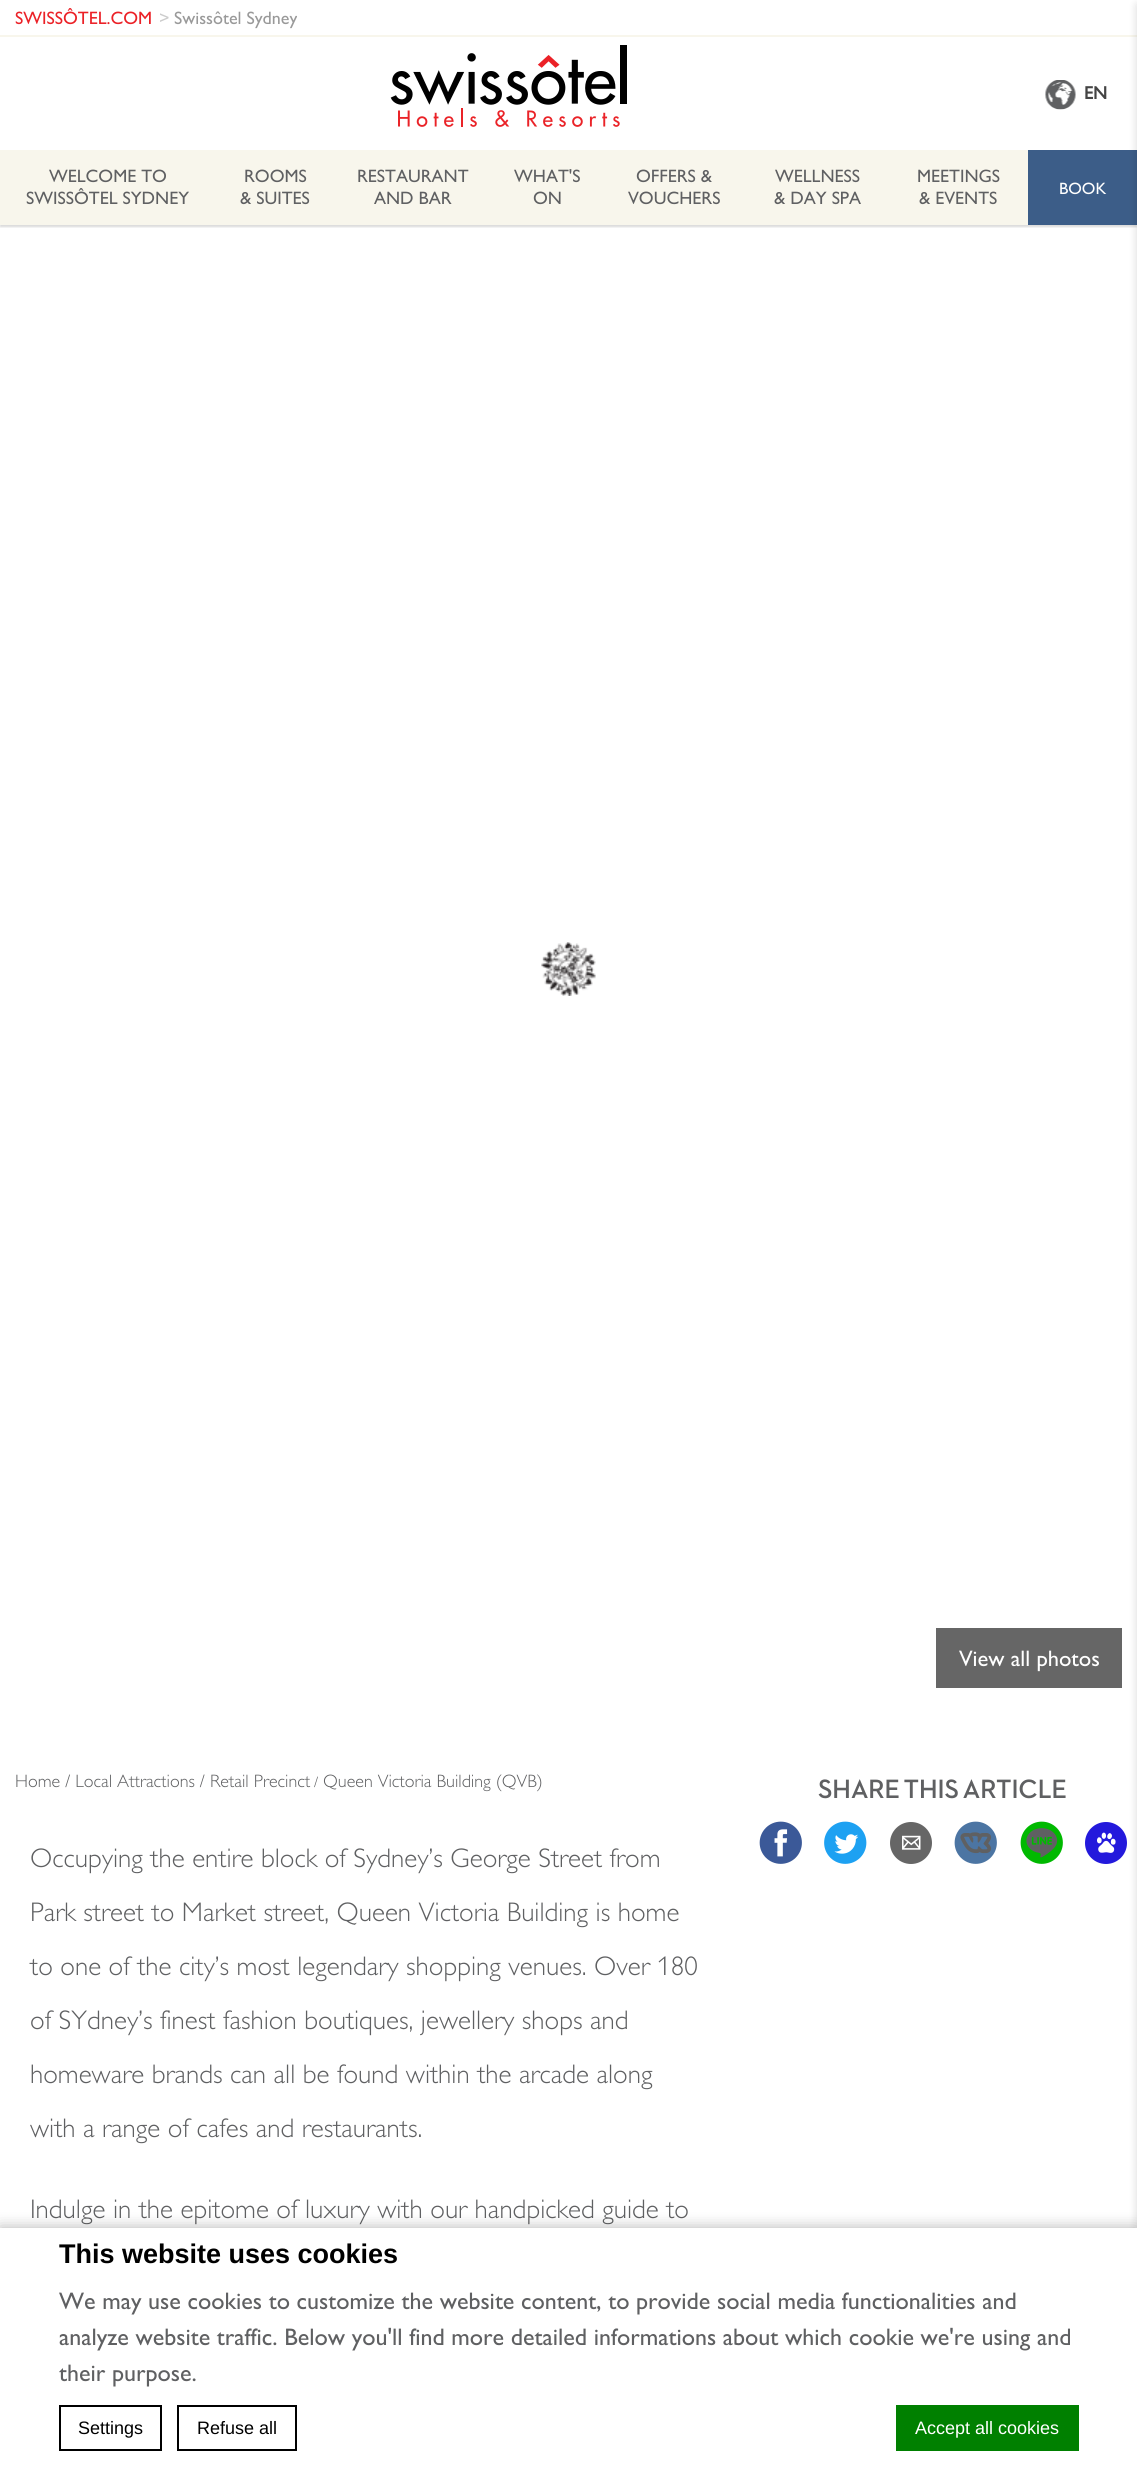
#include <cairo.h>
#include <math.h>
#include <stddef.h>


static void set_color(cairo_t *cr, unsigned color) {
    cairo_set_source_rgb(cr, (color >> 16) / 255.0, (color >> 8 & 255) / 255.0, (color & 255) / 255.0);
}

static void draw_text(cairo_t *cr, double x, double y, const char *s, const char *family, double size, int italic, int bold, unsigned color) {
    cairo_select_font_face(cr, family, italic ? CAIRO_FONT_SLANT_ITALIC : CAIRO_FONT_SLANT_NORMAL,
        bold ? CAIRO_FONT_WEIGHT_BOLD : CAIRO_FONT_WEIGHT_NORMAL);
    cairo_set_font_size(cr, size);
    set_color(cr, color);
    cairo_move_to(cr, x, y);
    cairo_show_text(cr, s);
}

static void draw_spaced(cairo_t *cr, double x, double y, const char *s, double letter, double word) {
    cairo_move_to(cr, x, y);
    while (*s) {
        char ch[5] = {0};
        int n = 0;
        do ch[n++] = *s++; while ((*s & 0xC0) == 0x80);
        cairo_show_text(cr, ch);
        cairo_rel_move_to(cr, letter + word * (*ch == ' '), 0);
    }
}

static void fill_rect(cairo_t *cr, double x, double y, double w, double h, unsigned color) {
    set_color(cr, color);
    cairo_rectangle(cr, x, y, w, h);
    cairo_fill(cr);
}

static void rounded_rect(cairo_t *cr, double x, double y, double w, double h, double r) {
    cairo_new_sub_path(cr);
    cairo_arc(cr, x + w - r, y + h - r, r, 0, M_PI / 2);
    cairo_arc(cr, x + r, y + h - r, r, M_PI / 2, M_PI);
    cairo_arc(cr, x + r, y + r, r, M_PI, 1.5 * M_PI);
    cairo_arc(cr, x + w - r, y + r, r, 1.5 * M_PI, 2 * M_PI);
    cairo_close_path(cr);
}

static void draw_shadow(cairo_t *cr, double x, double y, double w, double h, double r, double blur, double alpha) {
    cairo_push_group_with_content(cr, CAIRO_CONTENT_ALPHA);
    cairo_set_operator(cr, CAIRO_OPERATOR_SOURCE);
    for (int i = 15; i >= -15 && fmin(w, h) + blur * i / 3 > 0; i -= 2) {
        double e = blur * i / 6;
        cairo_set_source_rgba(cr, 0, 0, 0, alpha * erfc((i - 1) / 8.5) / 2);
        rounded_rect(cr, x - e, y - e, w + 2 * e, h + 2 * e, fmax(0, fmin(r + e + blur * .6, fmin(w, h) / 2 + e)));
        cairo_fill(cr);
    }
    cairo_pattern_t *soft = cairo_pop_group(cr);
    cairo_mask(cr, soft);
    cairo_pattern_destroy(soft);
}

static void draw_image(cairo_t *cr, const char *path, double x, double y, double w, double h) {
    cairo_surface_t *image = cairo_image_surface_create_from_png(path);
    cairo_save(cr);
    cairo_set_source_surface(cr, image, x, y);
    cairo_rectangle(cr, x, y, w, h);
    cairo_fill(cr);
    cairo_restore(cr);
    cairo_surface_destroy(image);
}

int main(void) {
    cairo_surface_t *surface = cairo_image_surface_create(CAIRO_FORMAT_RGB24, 1137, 2473);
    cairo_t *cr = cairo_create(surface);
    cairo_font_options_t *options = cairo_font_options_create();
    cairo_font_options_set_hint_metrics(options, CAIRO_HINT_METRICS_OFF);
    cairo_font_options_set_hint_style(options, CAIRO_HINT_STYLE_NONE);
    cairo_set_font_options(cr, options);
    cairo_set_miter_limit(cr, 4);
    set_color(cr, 0xFFFFFF);
    cairo_paint(cr);
    cairo_save(cr);
    cairo_rectangle(cr, 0, 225, 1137, 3);
    cairo_clip(cr);
    set_color(cr, 0x000000);
    draw_shadow(cr, 0, 2, 1137, 225, 0, 1, 0.15);
    cairo_restore(cr);
    fill_rect(cr, 0, 35, 1137, 2, 0xF8F6EC);
    draw_text(cr, 15, 24, "SWISSÔTEL.COM", "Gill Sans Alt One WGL", 18, 0, 0, 0xEB2127);
    draw_text(cr, 159, 24, ">", "Gill Sans Alt One WGL", 18, 0, 0, 0xCCCCCC);
    draw_text(cr, 174, 24, "Swissôtel Sydney", "Gill Sans Alt One WGL", 18, 0, 0, 0x999999);
    draw_image(cr, "assets/img1.png", 390, 45, 237, 82);
    draw_image(cr, "assets/img2.png", 1045, 80, 31, 30);
    draw_text(cr, 1084, 99, "EN", "Gill Sans Alt One WGL", 18, 0, 1, 0x444444);
    fill_rect(cr, 0, 150, 1028, 75, 0xF8F6EC);
    draw_text(cr, 49, 182, "WELCOME TO", "Gill Sans Alt One WGL", 18, 0, 0, 0x5F6062);
    draw_text(cr, 26, 204, "SWISSÔTEL SYDNEY", "Gill Sans Alt One WGL", 18, 0, 0, 0x5F6062);
    draw_text(cr, 244, 182, "ROOMS", "Gill Sans Alt One WGL", 18, 0, 0, 0x5F6062);
    draw_text(cr, 240, 204, "& SUITES", "Gill Sans Alt One WGL", 18, 0, 0, 0x5F6062);
    draw_text(cr, 357, 182, "RESTAURANT", "Gill Sans Alt One WGL", 18, 0, 0, 0x5F6062);
    draw_text(cr, 374, 204, "AND BAR", "Gill Sans Alt One WGL", 18, 0, 0, 0x5F6062);
    draw_text(cr, 514, 182, "WHAT'S", "Gill Sans Alt One WGL", 18, 0, 0, 0x5F6062);
    draw_text(cr, 533, 204, "ON", "Gill Sans Alt One WGL", 18, 0, 0, 0x5F6062);
    draw_text(cr, 636, 182, "OFFERS &", "Gill Sans Alt One WGL", 18, 0, 0, 0x5F6062);
    draw_text(cr, 628, 204, "VOUCHERS", "Gill Sans Alt One WGL", 18, 0, 0, 0x5F6062);
    draw_text(cr, 775, 182, "WELLNESS", "Gill Sans Alt One WGL", 18, 0, 0, 0x5F6062);
    draw_text(cr, 774, 204, "& DAY SPA", "Gill Sans Alt One WGL", 18, 0, 0, 0x5F6062);
    draw_text(cr, 917, 182, "MEETINGS", "Gill Sans Alt One WGL", 18, 0, 0, 0x5F6062);
    draw_text(cr, 919, 204, "& EVENTS", "Gill Sans Alt One WGL", 18, 0, 0, 0x5F6062);
    fill_rect(cr, 1028, 150, 109, 75, 0x3C5D88);
    draw_text(cr, 1059, 194, "BOOK", "Gill Sans Alt One WGL", 16.5, 0, 0, 0xFFFFFF);
    draw_image(cr, "assets/img9.png", 1085, 1822, 42, 42);
    set_color(cr, 0x000000);
    draw_shadow(cr, 1137, 5, 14, 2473, 0, 4.5, 0.15);
    draw_image(cr, "assets/img3.png", 541, 942, 55, 54);
    fill_rect(cr, 936, 1628, 186, 60, 0x666666);
    draw_text(cr, 959, 1666, "View all photos", "Gill Sans Alt One WGL", 22.5, 0, 0, 0xFFFFFF);
    draw_text(cr, 15, 1787, "Home / Local Attractions / Retail Precinct", "Gill Sans Alt One WGL Light", 18, 0, 0, 0x5F6062);
    draw_text(cr, 314, 1787, "/", "Gill Sans Alt One WGL Light", 15, 0, 0, 0x5F6062);
    draw_text(cr, 323, 1787, "Queen Victoria Building (QVB)", "Gill Sans Alt One WGL Light", 18, 0, 0, 0x5F6062);
    draw_text(cr, 30, 1867, "Occupying the entire block of Sydney’s George Street from", "Gill Sans Alt One WGL Light", 27, 0, 0, 0x5F6062);
    draw_text(cr, 30, 1921, "Park street to Market street, Queen Victoria Building is home", "Gill Sans Alt One WGL Light", 27, 0, 0, 0x5F6062);
    draw_text(cr, 30, 1975, "to one of the city’s most legendary shopping venues. Over 180", "Gill Sans Alt One WGL Light", 27, 0, 0, 0x5F6062);
    draw_text(cr, 30, 2029, "of SYdney’s finest fashion boutiques, jewellery shops and", "Gill Sans Alt One WGL Light", 27, 0, 0, 0x5F6062);
    draw_text(cr, 30, 2083, "homeware brands can all be found within the arcade along", "Gill Sans Alt One WGL Light", 27, 0, 0, 0x5F6062);
    draw_text(cr, 30, 2137, "with a range of cafes and restaurants.", "Gill Sans Alt One WGL Light", 27, 0, 0, 0x5F6062);
    draw_text(cr, 30, 2218, "Indulge in the epitome of luxury with our handpicked guide to", "Gill Sans Alt One WGL Light", 27, 0, 0, 0x5F6062);
    cairo_select_font_face(cr, "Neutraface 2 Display", CAIRO_FONT_SLANT_NORMAL, CAIRO_FONT_WEIGHT_BOLD);
    draw_spaced(cr, 818, 1798, "SHARE THIS ARTICLE", 0, -1);
    draw_image(cr, "assets/img4.png", 759, 1821, 43, 43);
    draw_image(cr, "assets/img5.png", 824, 1821, 43, 43);
    draw_image(cr, "assets/img6.png", 890, 1822, 42, 42);
    draw_image(cr, "assets/img7.png", 954, 1821, 43, 43);
    draw_image(cr, "assets/img8.png", 1020, 1821, 43, 43);
    set_color(cr, 0x000000);
    draw_shadow(cr, 0, 2228, 1137, 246, 0, 7.5, 0.3);
    fill_rect(cr, 0, 2228, 1137, 245, 0xFFFFFF);
    draw_text(cr, 59, 2263, "This website uses cookies", "Liberation Sans", 27, 0, 1, 0x000000);
    draw_text(cr, 59, 2309, "We may use cookies to customize the website content, to provide social media functionalities and", "Gill Sans Alt One WGL", 24, 0, 0, 0x5F6062);
    draw_text(cr, 59, 2345, "analyze website traffic. Below you'll find more detailed informations about which cookie we're using and", "Gill Sans Alt One WGL", 24, 0, 0, 0x5F6062);
    draw_text(cr, 59, 2381, "their purpose.", "Gill Sans Alt One WGL", 24, 0, 0, 0x5F6062);
    cairo_rectangle(cr, 60, 2406, 101, 44);
    set_color(cr, 0x000000);
    cairo_stroke(cr);
    draw_text(cr, 78, 2434, "Settings", "Liberation Sans", 18, 0, 0, 0x000000);
    cairo_rectangle(cr, 178, 2406, 118, 44);
    cairo_stroke(cr);
    draw_text(cr, 197, 2434, "Refuse all", "Liberation Sans", 18, 0, 0, 0x000000);
    fill_rect(cr, 896, 2405, 183, 46, 0x008000);
    draw_text(cr, 915, 2434, "Accept all cookies", "Liberation Sans", 18, 0, 0, 0xFFFFFF);
    cairo_surface_write_to_png(surface, "output.png");
    cairo_font_options_destroy(options);
    cairo_destroy(cr);
    cairo_surface_destroy(surface);
    return 0;
}
